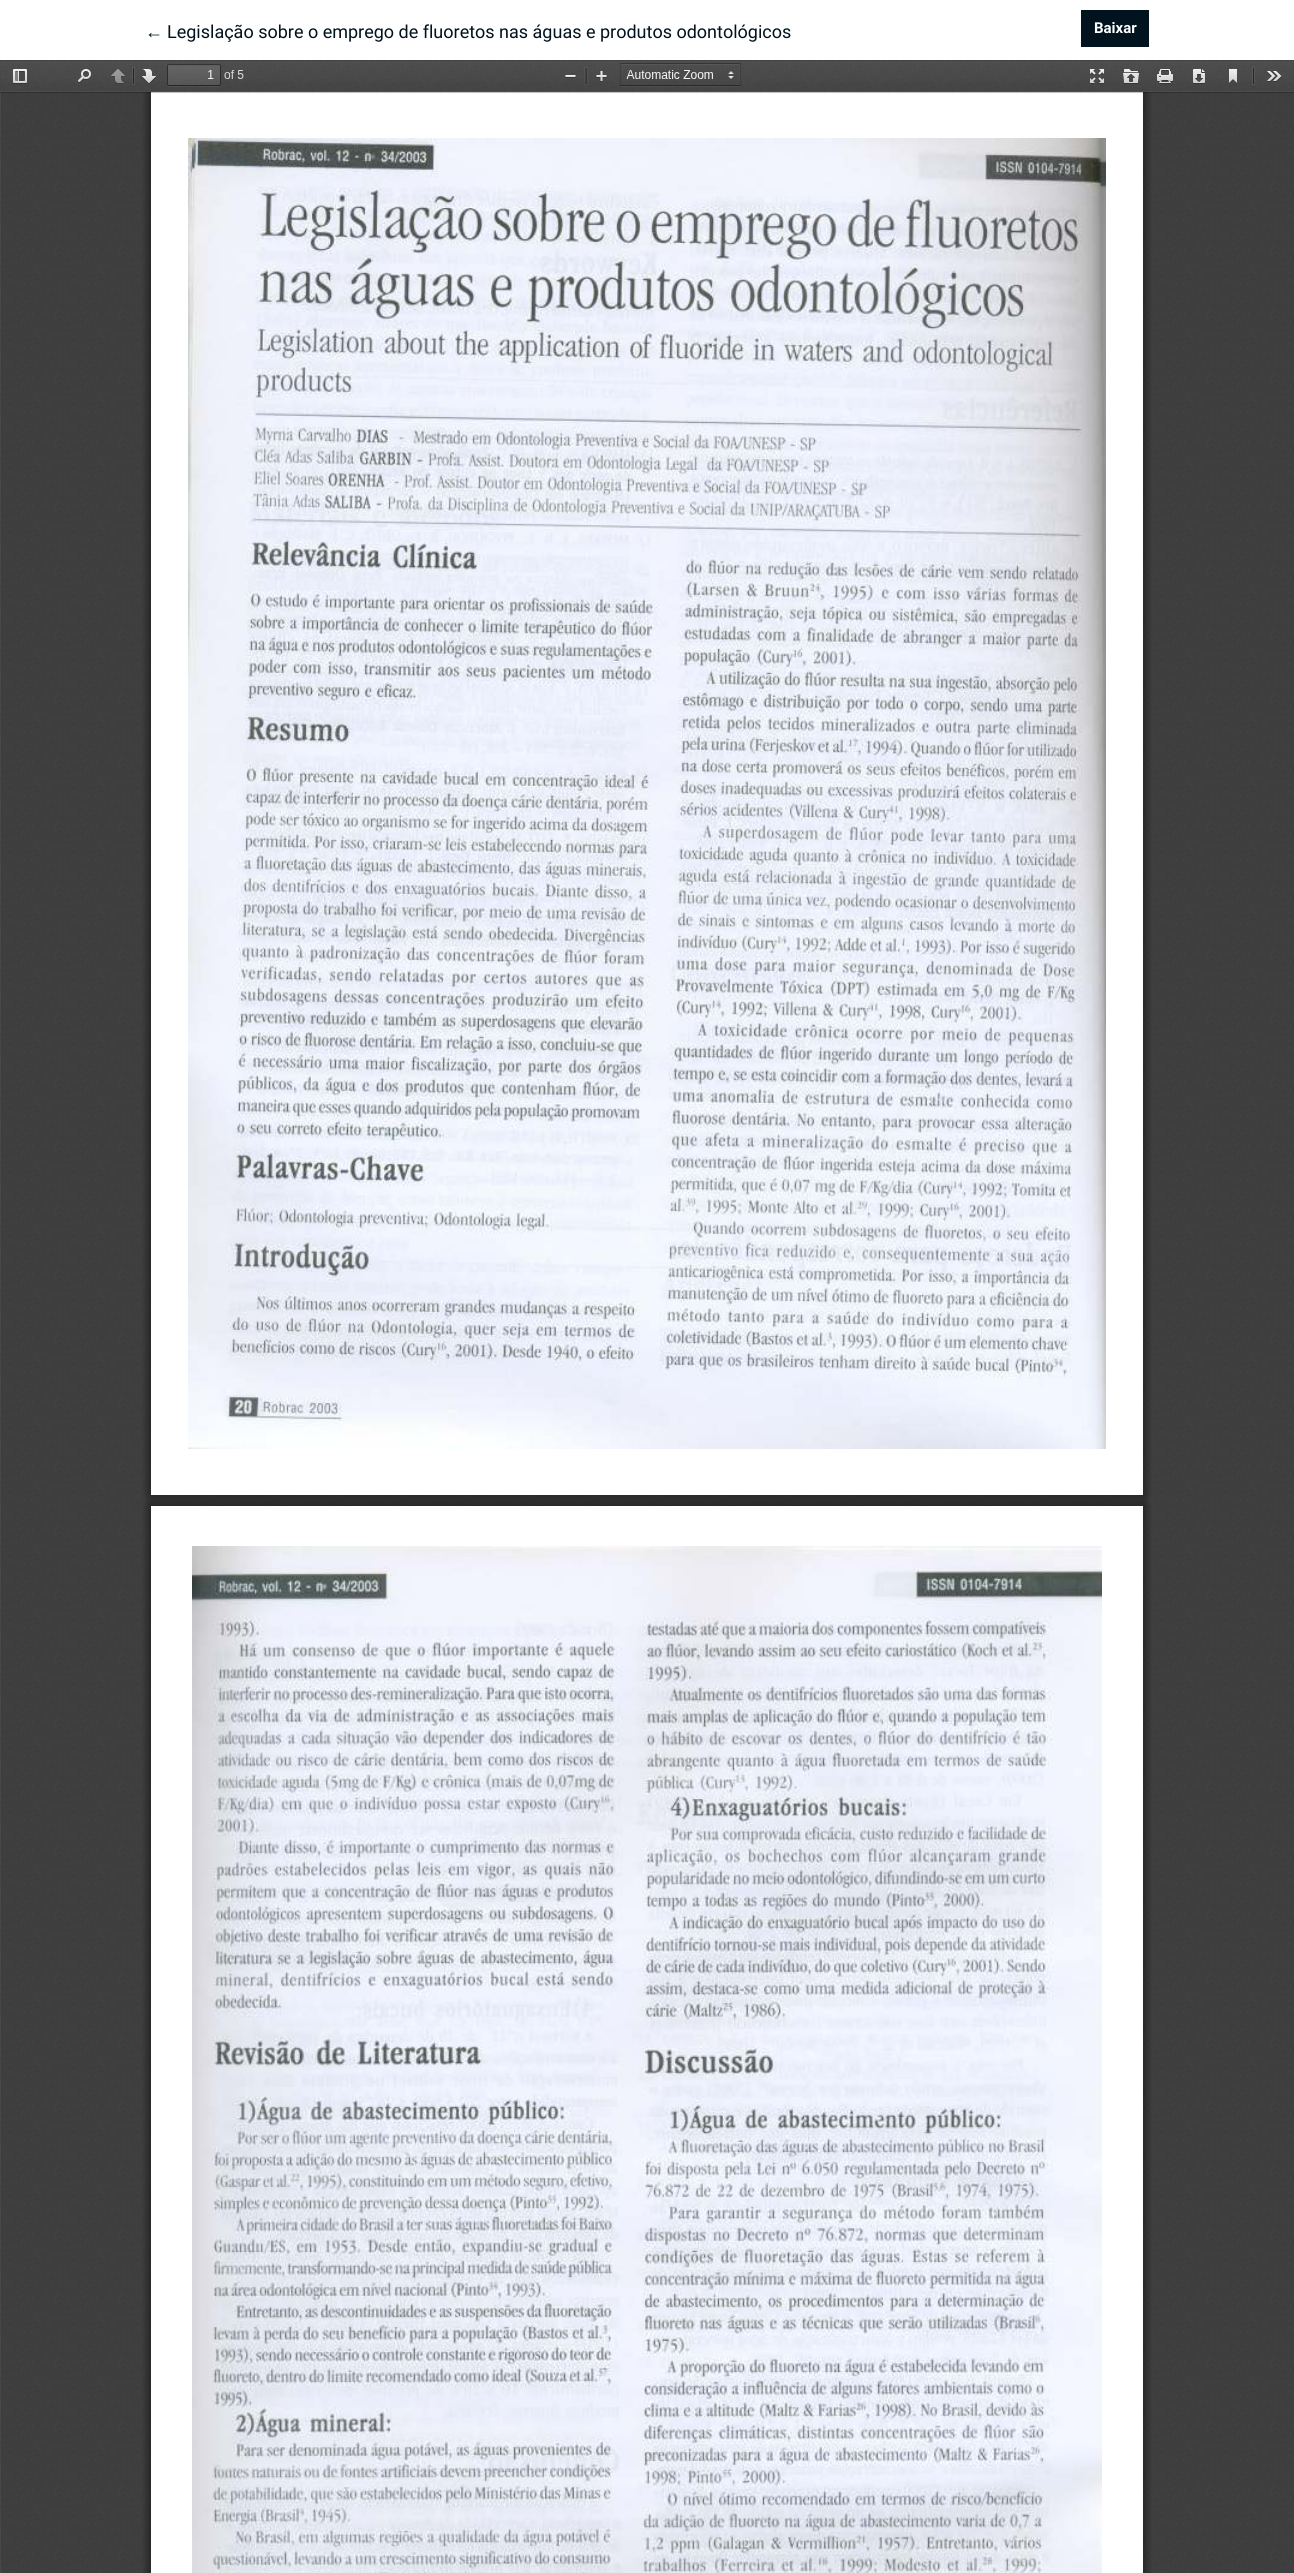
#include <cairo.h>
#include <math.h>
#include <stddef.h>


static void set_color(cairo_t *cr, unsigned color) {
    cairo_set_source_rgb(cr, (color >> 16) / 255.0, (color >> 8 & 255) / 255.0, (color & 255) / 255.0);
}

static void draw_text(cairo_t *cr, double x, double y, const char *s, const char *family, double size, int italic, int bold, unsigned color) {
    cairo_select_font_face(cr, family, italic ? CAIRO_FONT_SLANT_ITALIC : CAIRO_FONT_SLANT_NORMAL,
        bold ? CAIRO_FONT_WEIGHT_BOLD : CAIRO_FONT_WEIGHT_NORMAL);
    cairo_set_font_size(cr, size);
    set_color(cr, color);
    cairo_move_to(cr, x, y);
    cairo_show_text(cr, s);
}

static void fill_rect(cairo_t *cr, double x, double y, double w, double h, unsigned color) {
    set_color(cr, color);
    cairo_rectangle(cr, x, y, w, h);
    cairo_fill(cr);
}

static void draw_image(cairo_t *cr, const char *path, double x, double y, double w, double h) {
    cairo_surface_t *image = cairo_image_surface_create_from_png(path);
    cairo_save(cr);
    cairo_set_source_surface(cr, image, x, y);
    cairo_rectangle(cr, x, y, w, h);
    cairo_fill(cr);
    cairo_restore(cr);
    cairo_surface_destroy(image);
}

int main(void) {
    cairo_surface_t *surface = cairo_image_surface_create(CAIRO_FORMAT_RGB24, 1294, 2573);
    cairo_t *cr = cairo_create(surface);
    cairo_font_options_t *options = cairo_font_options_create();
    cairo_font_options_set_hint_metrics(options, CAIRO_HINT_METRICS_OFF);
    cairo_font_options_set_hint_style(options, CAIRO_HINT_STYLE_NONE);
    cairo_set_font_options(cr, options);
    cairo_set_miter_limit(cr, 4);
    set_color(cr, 0xFFFFFF);
    cairo_paint(cr);
    draw_text(cr, 145, 38, "←", "Liberation Sans", 18, 0, 0, 0x00131E);
    draw_text(cr, 167, 38, "Legislação sobre o emprego de fluoretos nas águas e produtos odontológicos", "Roboto", 18, 0, 0, 0x00131E);
    fill_rect(cr, 1081, 10, 68, 37, 0x00131E);
    draw_text(cr, 1094, 33, "Baixar", "Roboto", 15, 0, 1, 0xFFFFFF);
    draw_image(cr, "assets/img1.png", 0, 60, 1294, 2513);
    cairo_surface_write_to_png(surface, "output.png");
    cairo_font_options_destroy(options);
    cairo_destroy(cr);
    cairo_surface_destroy(surface);
    return 0;
}
